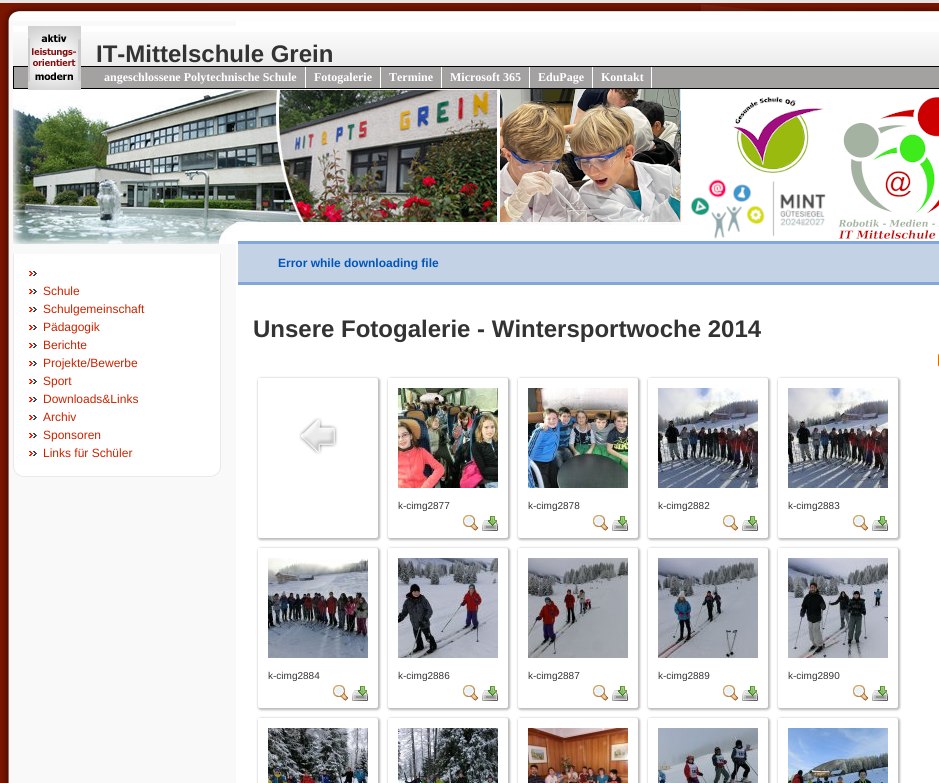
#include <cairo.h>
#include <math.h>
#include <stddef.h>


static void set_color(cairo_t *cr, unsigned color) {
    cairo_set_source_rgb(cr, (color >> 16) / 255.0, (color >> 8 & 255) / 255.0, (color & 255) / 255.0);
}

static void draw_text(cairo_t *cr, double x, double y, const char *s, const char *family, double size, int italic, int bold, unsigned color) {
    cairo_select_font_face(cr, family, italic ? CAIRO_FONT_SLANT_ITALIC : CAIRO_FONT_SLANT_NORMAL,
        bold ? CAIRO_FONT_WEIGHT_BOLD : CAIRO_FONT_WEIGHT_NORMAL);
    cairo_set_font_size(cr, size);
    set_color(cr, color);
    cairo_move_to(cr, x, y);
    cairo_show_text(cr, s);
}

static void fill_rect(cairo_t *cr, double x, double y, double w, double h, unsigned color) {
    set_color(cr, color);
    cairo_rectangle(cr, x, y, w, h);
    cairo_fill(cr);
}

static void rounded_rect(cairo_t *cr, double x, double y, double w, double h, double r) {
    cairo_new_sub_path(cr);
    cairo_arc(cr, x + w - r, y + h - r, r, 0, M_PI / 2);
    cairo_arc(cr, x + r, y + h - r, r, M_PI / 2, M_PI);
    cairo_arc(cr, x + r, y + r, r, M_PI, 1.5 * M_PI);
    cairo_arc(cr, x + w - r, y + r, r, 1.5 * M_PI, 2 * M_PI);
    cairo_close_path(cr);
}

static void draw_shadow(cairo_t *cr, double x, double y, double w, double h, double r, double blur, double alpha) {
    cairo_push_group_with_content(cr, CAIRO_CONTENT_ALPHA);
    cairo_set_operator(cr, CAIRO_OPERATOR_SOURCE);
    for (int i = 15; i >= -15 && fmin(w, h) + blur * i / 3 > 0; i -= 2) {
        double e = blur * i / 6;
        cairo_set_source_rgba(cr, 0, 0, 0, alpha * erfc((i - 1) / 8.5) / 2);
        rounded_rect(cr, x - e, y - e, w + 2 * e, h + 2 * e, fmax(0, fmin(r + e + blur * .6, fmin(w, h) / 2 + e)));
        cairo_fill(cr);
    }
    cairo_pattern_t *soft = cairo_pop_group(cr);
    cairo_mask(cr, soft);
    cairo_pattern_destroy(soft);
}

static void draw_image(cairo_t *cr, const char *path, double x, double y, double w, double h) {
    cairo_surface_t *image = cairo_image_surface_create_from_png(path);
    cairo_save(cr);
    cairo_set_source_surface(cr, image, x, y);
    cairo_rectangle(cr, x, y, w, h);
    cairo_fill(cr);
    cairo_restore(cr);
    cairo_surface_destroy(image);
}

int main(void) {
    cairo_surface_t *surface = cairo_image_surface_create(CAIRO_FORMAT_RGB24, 939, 783);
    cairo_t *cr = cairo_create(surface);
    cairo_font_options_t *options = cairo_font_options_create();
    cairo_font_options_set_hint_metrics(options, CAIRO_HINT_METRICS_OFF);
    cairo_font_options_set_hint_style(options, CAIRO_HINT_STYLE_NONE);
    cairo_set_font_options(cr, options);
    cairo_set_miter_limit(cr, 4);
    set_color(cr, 0xE4E4E4);
    cairo_paint(cr);
    fill_rect(cr, 236, 21, 703, 762, 0xFFFFFF);
    draw_image(cr, "assets/img1.png", 0, 3, 236, 780);
    draw_image(cr, "assets/img2.png", 2, 3, 937, 18);
    fill_rect(cr, 13, 26, 223, 6, 0xFFFFFF);
    draw_image(cr, "assets/img3.png", 13, 32, 926, 34);
    set_color(cr, 0xA4A1A1);
    cairo_rectangle(cr, 13.5, 66.5, 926, 22);
    cairo_fill_preserve(cr);
    set_color(cr, 0x000000);
    cairo_set_line_width(cr, 1);
    cairo_stroke(cr);
    draw_image(cr, "assets/img5.png", 13, 89, 926, 155);
    draw_image(cr, "assets/img4.png", 28, 26, 53, 64);
    draw_text(cr, 96, 62, "IT-Mittelschule Grein", "Liberation Sans", 24, 0, 1, 0x333333);
    fill_rect(cr, 305, 67, 1, 21, 0xFFFFFF);
    draw_text(cr, 104, 81, "angeschlossene Polytechnische Schule", "Liberation Serif", 12, 0, 1, 0xFFFFFF);
    fill_rect(cr, 380, 67, 1, 21, 0xFFFFFF);
    draw_text(cr, 314, 81, "Fotogalerie", "Liberation Serif", 12, 0, 1, 0xFFFFFF);
    fill_rect(cr, 441, 67, 1, 21, 0xFFFFFF);
    draw_text(cr, 389, 81, "Termine", "Liberation Serif", 12, 0, 1, 0xFFFFFF);
    fill_rect(cr, 529, 67, 1, 21, 0xFFFFFF);
    draw_text(cr, 450, 81, "Microsoft 365", "Liberation Serif", 12, 0, 1, 0xFFFFFF);
    fill_rect(cr, 592, 67, 1, 21, 0xFFFFFF);
    draw_text(cr, 538, 81, "EduPage", "Liberation Serif", 12, 0, 1, 0xFFFFFF);
    fill_rect(cr, 651, 67, 1, 21, 0xFFFFFF);
    draw_text(cr, 601, 81, "Kontakt", "Liberation Serif", 12, 0, 1, 0xFFFFFF);
    draw_image(cr, "assets/img6.png", 13, 254, 208, 223);
    draw_image(cr, "assets/img7.png", 29, 271, 8, 5);
    draw_image(cr, "assets/img7.png", 29, 289, 8, 5);
    draw_text(cr, 43, 295, "Schule", "Liberation Sans", 12, 0, 0, 0xC92400);
    draw_image(cr, "assets/img7.png", 29, 307, 8, 5);
    draw_text(cr, 43, 313, "Schulgemeinschaft", "Liberation Sans", 12, 0, 0, 0xC92400);
    draw_image(cr, "assets/img7.png", 29, 325, 8, 5);
    draw_text(cr, 43, 331, "Pädagogik", "Liberation Sans", 12, 0, 0, 0xC92400);
    draw_image(cr, "assets/img7.png", 29, 343, 8, 5);
    draw_text(cr, 43, 349, "Berichte", "Liberation Sans", 12, 0, 0, 0xC92400);
    draw_image(cr, "assets/img7.png", 29, 361, 8, 5);
    draw_text(cr, 43, 367, "Projekte/Bewerbe", "Liberation Sans", 12, 0, 0, 0xC92400);
    draw_image(cr, "assets/img7.png", 29, 379, 8, 5);
    draw_text(cr, 43, 385, "Sport", "Liberation Sans", 12, 0, 0, 0xC92400);
    draw_image(cr, "assets/img7.png", 29, 397, 8, 5);
    draw_text(cr, 43, 403, "Downloads&Links", "Liberation Sans", 12, 0, 0, 0xC92400);
    draw_image(cr, "assets/img7.png", 29, 415, 8, 5);
    draw_text(cr, 43, 421, "Archiv", "Liberation Sans", 12, 0, 0, 0xC92400);
    draw_image(cr, "assets/img7.png", 29, 433, 8, 5);
    draw_text(cr, 43, 439, "Sponsoren", "Liberation Sans", 12, 0, 0, 0xC92400);
    draw_image(cr, "assets/img7.png", 29, 451, 8, 5);
    draw_text(cr, 43, 457, "Links für Schüler", "Liberation Sans", 12, 0, 0, 0xC92400);
    fill_rect(cr, 238, 244, 701, 38, 0xC3D2E5);
    fill_rect(cr, 238, 241, 701, 3, 0x84A7DB);
    fill_rect(cr, 238, 282, 701, 3, 0x84A7DB);
    draw_text(cr, 278, 267, "Error while downloading file", "Liberation Sans", 12, 0, 1, 0x0055BB);
    draw_text(cr, 253, 337, "Unsere Fotogalerie - Wintersportwoche 2014", "Liberation Sans", 24, 0, 1, 0x333333);
    draw_image(cr, "assets/img8.png", 938, 353, 1, 14);
    cairo_save(cr);
    cairo_set_fill_rule(cr, CAIRO_FILL_RULE_EVEN_ODD);
    cairo_new_path(cr);
    cairo_move_to(cr, 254, 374);
    cairo_line_to(cr, 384, 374);
    cairo_line_to(cr, 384, 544);
    cairo_line_to(cr, 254, 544);
    cairo_close_path(cr);
    cairo_move_to(cr, 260, 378);
    cairo_line_to(cr, 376, 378);
    cairo_curve_to(cr, 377, 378, 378, 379, 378, 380);
    cairo_line_to(cr, 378, 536);
    cairo_curve_to(cr, 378, 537, 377, 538, 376, 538);
    cairo_line_to(cr, 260, 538);
    cairo_curve_to(cr, 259, 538, 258, 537, 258, 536);
    cairo_line_to(cr, 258, 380);
    cairo_curve_to(cr, 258, 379, 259, 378, 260, 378);
    cairo_close_path(cr);
    cairo_clip(cr);
    set_color(cr, 0x787878);
    draw_shadow(cr, 258, 378, 122, 162, 3, 1, 0.5);
    cairo_restore(cr);
    draw_image(cr, "assets/img9.png", 299, 417, 39, 38);
    cairo_save(cr);
    cairo_set_fill_rule(cr, CAIRO_FILL_RULE_EVEN_ODD);
    cairo_new_path(cr);
    cairo_move_to(cr, 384, 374);
    cairo_line_to(cr, 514, 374);
    cairo_line_to(cr, 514, 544);
    cairo_line_to(cr, 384, 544);
    cairo_close_path(cr);
    cairo_move_to(cr, 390, 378);
    cairo_line_to(cr, 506, 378);
    cairo_curve_to(cr, 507, 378, 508, 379, 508, 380);
    cairo_line_to(cr, 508, 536);
    cairo_curve_to(cr, 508, 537, 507, 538, 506, 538);
    cairo_line_to(cr, 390, 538);
    cairo_curve_to(cr, 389, 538, 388, 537, 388, 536);
    cairo_line_to(cr, 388, 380);
    cairo_curve_to(cr, 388, 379, 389, 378, 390, 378);
    cairo_close_path(cr);
    cairo_clip(cr);
    set_color(cr, 0x787878);
    draw_shadow(cr, 388, 378, 122, 162, 3, 1, 0.5);
    cairo_restore(cr);
    draw_image(cr, "assets/img10.png", 398, 388, 100, 100);
    draw_text(cr, 398, 509, "k-cimg2877", "Liberation Sans", 10, 0, 0, 0x333333);
    draw_image(cr, "assets/img11.png", 463, 515, 16, 16);
    draw_image(cr, "assets/img12.png", 482, 516, 16, 15);
    cairo_save(cr);
    cairo_set_fill_rule(cr, CAIRO_FILL_RULE_EVEN_ODD);
    cairo_new_path(cr);
    cairo_move_to(cr, 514, 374);
    cairo_line_to(cr, 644, 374);
    cairo_line_to(cr, 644, 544);
    cairo_line_to(cr, 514, 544);
    cairo_close_path(cr);
    cairo_move_to(cr, 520, 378);
    cairo_line_to(cr, 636, 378);
    cairo_curve_to(cr, 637, 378, 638, 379, 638, 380);
    cairo_line_to(cr, 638, 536);
    cairo_curve_to(cr, 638, 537, 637, 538, 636, 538);
    cairo_line_to(cr, 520, 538);
    cairo_curve_to(cr, 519, 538, 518, 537, 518, 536);
    cairo_line_to(cr, 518, 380);
    cairo_curve_to(cr, 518, 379, 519, 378, 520, 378);
    cairo_close_path(cr);
    cairo_clip(cr);
    set_color(cr, 0x787878);
    draw_shadow(cr, 518, 378, 122, 162, 3, 1, 0.5);
    cairo_restore(cr);
    draw_image(cr, "assets/img13.png", 528, 388, 100, 100);
    draw_text(cr, 528, 509, "k-cimg2878", "Liberation Sans", 10, 0, 0, 0x333333);
    draw_image(cr, "assets/img11.png", 593, 515, 16, 16);
    draw_image(cr, "assets/img12.png", 612, 516, 16, 15);
    cairo_save(cr);
    cairo_set_fill_rule(cr, CAIRO_FILL_RULE_EVEN_ODD);
    cairo_new_path(cr);
    cairo_move_to(cr, 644, 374);
    cairo_line_to(cr, 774, 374);
    cairo_line_to(cr, 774, 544);
    cairo_line_to(cr, 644, 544);
    cairo_close_path(cr);
    cairo_move_to(cr, 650, 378);
    cairo_line_to(cr, 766, 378);
    cairo_curve_to(cr, 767, 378, 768, 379, 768, 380);
    cairo_line_to(cr, 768, 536);
    cairo_curve_to(cr, 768, 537, 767, 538, 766, 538);
    cairo_line_to(cr, 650, 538);
    cairo_curve_to(cr, 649, 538, 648, 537, 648, 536);
    cairo_line_to(cr, 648, 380);
    cairo_curve_to(cr, 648, 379, 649, 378, 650, 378);
    cairo_close_path(cr);
    cairo_clip(cr);
    set_color(cr, 0x787878);
    draw_shadow(cr, 648, 378, 122, 162, 3, 1, 0.5);
    cairo_restore(cr);
    draw_image(cr, "assets/img14.png", 658, 388, 100, 100);
    draw_text(cr, 658, 509, "k-cimg2882", "Liberation Sans", 10, 0, 0, 0x333333);
    draw_image(cr, "assets/img11.png", 723, 515, 16, 16);
    draw_image(cr, "assets/img12.png", 742, 516, 16, 15);
    cairo_save(cr);
    cairo_set_fill_rule(cr, CAIRO_FILL_RULE_EVEN_ODD);
    cairo_new_path(cr);
    cairo_move_to(cr, 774, 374);
    cairo_line_to(cr, 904, 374);
    cairo_line_to(cr, 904, 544);
    cairo_line_to(cr, 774, 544);
    cairo_close_path(cr);
    cairo_move_to(cr, 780, 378);
    cairo_line_to(cr, 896, 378);
    cairo_curve_to(cr, 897, 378, 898, 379, 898, 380);
    cairo_line_to(cr, 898, 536);
    cairo_curve_to(cr, 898, 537, 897, 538, 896, 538);
    cairo_line_to(cr, 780, 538);
    cairo_curve_to(cr, 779, 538, 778, 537, 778, 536);
    cairo_line_to(cr, 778, 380);
    cairo_curve_to(cr, 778, 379, 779, 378, 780, 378);
    cairo_close_path(cr);
    cairo_clip(cr);
    set_color(cr, 0x787878);
    draw_shadow(cr, 778, 378, 122, 162, 3, 1, 0.5);
    cairo_restore(cr);
    draw_image(cr, "assets/img15.png", 788, 388, 100, 100);
    draw_text(cr, 788, 509, "k-cimg2883", "Liberation Sans", 10, 0, 0, 0x333333);
    draw_image(cr, "assets/img11.png", 853, 515, 16, 16);
    draw_image(cr, "assets/img12.png", 872, 516, 16, 15);
    cairo_save(cr);
    cairo_set_fill_rule(cr, CAIRO_FILL_RULE_EVEN_ODD);
    cairo_new_path(cr);
    cairo_move_to(cr, 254, 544);
    cairo_line_to(cr, 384, 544);
    cairo_line_to(cr, 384, 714);
    cairo_line_to(cr, 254, 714);
    cairo_close_path(cr);
    cairo_move_to(cr, 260, 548);
    cairo_line_to(cr, 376, 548);
    cairo_curve_to(cr, 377, 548, 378, 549, 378, 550);
    cairo_line_to(cr, 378, 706);
    cairo_curve_to(cr, 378, 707, 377, 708, 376, 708);
    cairo_line_to(cr, 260, 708);
    cairo_curve_to(cr, 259, 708, 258, 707, 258, 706);
    cairo_line_to(cr, 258, 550);
    cairo_curve_to(cr, 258, 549, 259, 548, 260, 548);
    cairo_close_path(cr);
    cairo_clip(cr);
    set_color(cr, 0x787878);
    draw_shadow(cr, 258, 548, 122, 162, 3, 1, 0.5);
    cairo_restore(cr);
    draw_image(cr, "assets/img16.png", 268, 558, 100, 100);
    draw_text(cr, 268, 679, "k-cimg2884", "Liberation Sans", 10, 0, 0, 0x333333);
    draw_image(cr, "assets/img11.png", 333, 685, 16, 16);
    draw_image(cr, "assets/img12.png", 352, 686, 16, 15);
    cairo_save(cr);
    cairo_set_fill_rule(cr, CAIRO_FILL_RULE_EVEN_ODD);
    cairo_new_path(cr);
    cairo_move_to(cr, 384, 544);
    cairo_line_to(cr, 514, 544);
    cairo_line_to(cr, 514, 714);
    cairo_line_to(cr, 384, 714);
    cairo_close_path(cr);
    cairo_move_to(cr, 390, 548);
    cairo_line_to(cr, 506, 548);
    cairo_curve_to(cr, 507, 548, 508, 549, 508, 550);
    cairo_line_to(cr, 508, 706);
    cairo_curve_to(cr, 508, 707, 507, 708, 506, 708);
    cairo_line_to(cr, 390, 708);
    cairo_curve_to(cr, 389, 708, 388, 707, 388, 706);
    cairo_line_to(cr, 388, 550);
    cairo_curve_to(cr, 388, 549, 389, 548, 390, 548);
    cairo_close_path(cr);
    cairo_clip(cr);
    set_color(cr, 0x787878);
    draw_shadow(cr, 388, 548, 122, 162, 3, 1, 0.5);
    cairo_restore(cr);
    draw_image(cr, "assets/img17.png", 398, 558, 100, 100);
    draw_text(cr, 398, 679, "k-cimg2886", "Liberation Sans", 10, 0, 0, 0x333333);
    draw_image(cr, "assets/img11.png", 463, 685, 16, 16);
    draw_image(cr, "assets/img12.png", 482, 686, 16, 15);
    cairo_save(cr);
    cairo_set_fill_rule(cr, CAIRO_FILL_RULE_EVEN_ODD);
    cairo_new_path(cr);
    cairo_move_to(cr, 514, 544);
    cairo_line_to(cr, 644, 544);
    cairo_line_to(cr, 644, 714);
    cairo_line_to(cr, 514, 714);
    cairo_close_path(cr);
    cairo_move_to(cr, 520, 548);
    cairo_line_to(cr, 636, 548);
    cairo_curve_to(cr, 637, 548, 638, 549, 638, 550);
    cairo_line_to(cr, 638, 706);
    cairo_curve_to(cr, 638, 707, 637, 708, 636, 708);
    cairo_line_to(cr, 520, 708);
    cairo_curve_to(cr, 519, 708, 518, 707, 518, 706);
    cairo_line_to(cr, 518, 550);
    cairo_curve_to(cr, 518, 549, 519, 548, 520, 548);
    cairo_close_path(cr);
    cairo_clip(cr);
    set_color(cr, 0x787878);
    draw_shadow(cr, 518, 548, 122, 162, 3, 1, 0.5);
    cairo_restore(cr);
    draw_image(cr, "assets/img18.png", 528, 558, 100, 100);
    draw_text(cr, 528, 679, "k-cimg2887", "Liberation Sans", 10, 0, 0, 0x333333);
    draw_image(cr, "assets/img11.png", 593, 685, 16, 16);
    draw_image(cr, "assets/img12.png", 612, 686, 16, 15);
    cairo_save(cr);
    cairo_set_fill_rule(cr, CAIRO_FILL_RULE_EVEN_ODD);
    cairo_new_path(cr);
    cairo_move_to(cr, 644, 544);
    cairo_line_to(cr, 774, 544);
    cairo_line_to(cr, 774, 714);
    cairo_line_to(cr, 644, 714);
    cairo_close_path(cr);
    cairo_move_to(cr, 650, 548);
    cairo_line_to(cr, 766, 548);
    cairo_curve_to(cr, 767, 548, 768, 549, 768, 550);
    cairo_line_to(cr, 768, 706);
    cairo_curve_to(cr, 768, 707, 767, 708, 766, 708);
    cairo_line_to(cr, 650, 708);
    cairo_curve_to(cr, 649, 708, 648, 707, 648, 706);
    cairo_line_to(cr, 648, 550);
    cairo_curve_to(cr, 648, 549, 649, 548, 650, 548);
    cairo_close_path(cr);
    cairo_clip(cr);
    set_color(cr, 0x787878);
    draw_shadow(cr, 648, 548, 122, 162, 3, 1, 0.5);
    cairo_restore(cr);
    draw_image(cr, "assets/img19.png", 658, 558, 100, 100);
    draw_text(cr, 658, 679, "k-cimg2889", "Liberation Sans", 10, 0, 0, 0x333333);
    draw_image(cr, "assets/img11.png", 723, 685, 16, 16);
    draw_image(cr, "assets/img12.png", 742, 686, 16, 15);
    cairo_save(cr);
    cairo_set_fill_rule(cr, CAIRO_FILL_RULE_EVEN_ODD);
    cairo_new_path(cr);
    cairo_move_to(cr, 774, 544);
    cairo_line_to(cr, 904, 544);
    cairo_line_to(cr, 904, 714);
    cairo_line_to(cr, 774, 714);
    cairo_close_path(cr);
    cairo_move_to(cr, 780, 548);
    cairo_line_to(cr, 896, 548);
    cairo_curve_to(cr, 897, 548, 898, 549, 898, 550);
    cairo_line_to(cr, 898, 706);
    cairo_curve_to(cr, 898, 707, 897, 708, 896, 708);
    cairo_line_to(cr, 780, 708);
    cairo_curve_to(cr, 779, 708, 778, 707, 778, 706);
    cairo_line_to(cr, 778, 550);
    cairo_curve_to(cr, 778, 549, 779, 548, 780, 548);
    cairo_close_path(cr);
    cairo_clip(cr);
    set_color(cr, 0x787878);
    draw_shadow(cr, 778, 548, 122, 162, 3, 1, 0.5);
    cairo_restore(cr);
    draw_image(cr, "assets/img20.png", 788, 558, 100, 100);
    draw_text(cr, 788, 679, "k-cimg2890", "Liberation Sans", 10, 0, 0, 0x333333);
    draw_image(cr, "assets/img11.png", 853, 685, 16, 16);
    draw_image(cr, "assets/img12.png", 872, 686, 16, 15);
    cairo_save(cr);
    cairo_set_fill_rule(cr, CAIRO_FILL_RULE_EVEN_ODD);
    cairo_new_path(cr);
    cairo_move_to(cr, 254, 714);
    cairo_line_to(cr, 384, 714);
    cairo_line_to(cr, 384, 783);
    cairo_line_to(cr, 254, 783);
    cairo_close_path(cr);
    cairo_move_to(cr, 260, 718);
    cairo_line_to(cr, 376, 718);
    cairo_curve_to(cr, 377, 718, 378, 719, 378, 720);
    cairo_line_to(cr, 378, 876);
    cairo_curve_to(cr, 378, 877, 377, 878, 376, 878);
    cairo_line_to(cr, 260, 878);
    cairo_curve_to(cr, 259, 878, 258, 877, 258, 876);
    cairo_line_to(cr, 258, 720);
    cairo_curve_to(cr, 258, 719, 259, 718, 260, 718);
    cairo_close_path(cr);
    cairo_clip(cr);
    set_color(cr, 0x787878);
    draw_shadow(cr, 258, 718, 122, 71, 3, 1, 0.5);
    cairo_restore(cr);
    draw_image(cr, "assets/img21.png", 268, 728, 100, 55);
    cairo_save(cr);
    cairo_set_fill_rule(cr, CAIRO_FILL_RULE_EVEN_ODD);
    cairo_new_path(cr);
    cairo_move_to(cr, 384, 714);
    cairo_line_to(cr, 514, 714);
    cairo_line_to(cr, 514, 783);
    cairo_line_to(cr, 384, 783);
    cairo_close_path(cr);
    cairo_move_to(cr, 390, 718);
    cairo_line_to(cr, 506, 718);
    cairo_curve_to(cr, 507, 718, 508, 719, 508, 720);
    cairo_line_to(cr, 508, 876);
    cairo_curve_to(cr, 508, 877, 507, 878, 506, 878);
    cairo_line_to(cr, 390, 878);
    cairo_curve_to(cr, 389, 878, 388, 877, 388, 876);
    cairo_line_to(cr, 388, 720);
    cairo_curve_to(cr, 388, 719, 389, 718, 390, 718);
    cairo_close_path(cr);
    cairo_clip(cr);
    set_color(cr, 0x787878);
    draw_shadow(cr, 388, 718, 122, 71, 3, 1, 0.5);
    cairo_restore(cr);
    draw_image(cr, "assets/img22.png", 398, 728, 100, 55);
    cairo_save(cr);
    cairo_set_fill_rule(cr, CAIRO_FILL_RULE_EVEN_ODD);
    cairo_new_path(cr);
    cairo_move_to(cr, 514, 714);
    cairo_line_to(cr, 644, 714);
    cairo_line_to(cr, 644, 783);
    cairo_line_to(cr, 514, 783);
    cairo_close_path(cr);
    cairo_move_to(cr, 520, 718);
    cairo_line_to(cr, 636, 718);
    cairo_curve_to(cr, 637, 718, 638, 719, 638, 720);
    cairo_line_to(cr, 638, 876);
    cairo_curve_to(cr, 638, 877, 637, 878, 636, 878);
    cairo_line_to(cr, 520, 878);
    cairo_curve_to(cr, 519, 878, 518, 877, 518, 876);
    cairo_line_to(cr, 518, 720);
    cairo_curve_to(cr, 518, 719, 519, 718, 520, 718);
    cairo_close_path(cr);
    cairo_clip(cr);
    set_color(cr, 0x787878);
    draw_shadow(cr, 518, 718, 122, 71, 3, 1, 0.5);
    cairo_restore(cr);
    draw_image(cr, "assets/img23.png", 528, 728, 100, 55);
    cairo_save(cr);
    cairo_set_fill_rule(cr, CAIRO_FILL_RULE_EVEN_ODD);
    cairo_new_path(cr);
    cairo_move_to(cr, 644, 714);
    cairo_line_to(cr, 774, 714);
    cairo_line_to(cr, 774, 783);
    cairo_line_to(cr, 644, 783);
    cairo_close_path(cr);
    cairo_move_to(cr, 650, 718);
    cairo_line_to(cr, 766, 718);
    cairo_curve_to(cr, 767, 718, 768, 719, 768, 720);
    cairo_line_to(cr, 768, 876);
    cairo_curve_to(cr, 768, 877, 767, 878, 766, 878);
    cairo_line_to(cr, 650, 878);
    cairo_curve_to(cr, 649, 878, 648, 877, 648, 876);
    cairo_line_to(cr, 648, 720);
    cairo_curve_to(cr, 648, 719, 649, 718, 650, 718);
    cairo_close_path(cr);
    cairo_clip(cr);
    set_color(cr, 0x787878);
    draw_shadow(cr, 648, 718, 122, 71, 3, 1, 0.5);
    cairo_restore(cr);
    draw_image(cr, "assets/img24.png", 658, 728, 100, 55);
    cairo_save(cr);
    cairo_set_fill_rule(cr, CAIRO_FILL_RULE_EVEN_ODD);
    cairo_new_path(cr);
    cairo_move_to(cr, 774, 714);
    cairo_line_to(cr, 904, 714);
    cairo_line_to(cr, 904, 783);
    cairo_line_to(cr, 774, 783);
    cairo_close_path(cr);
    cairo_move_to(cr, 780, 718);
    cairo_line_to(cr, 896, 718);
    cairo_curve_to(cr, 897, 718, 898, 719, 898, 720);
    cairo_line_to(cr, 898, 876);
    cairo_curve_to(cr, 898, 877, 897, 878, 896, 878);
    cairo_line_to(cr, 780, 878);
    cairo_curve_to(cr, 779, 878, 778, 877, 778, 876);
    cairo_line_to(cr, 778, 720);
    cairo_curve_to(cr, 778, 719, 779, 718, 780, 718);
    cairo_close_path(cr);
    cairo_clip(cr);
    set_color(cr, 0x787878);
    draw_shadow(cr, 778, 718, 122, 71, 3, 1, 0.5);
    cairo_restore(cr);
    draw_image(cr, "assets/img25.png", 788, 728, 100, 55);
    cairo_surface_write_to_png(surface, "output.png");
    cairo_font_options_destroy(options);
    cairo_destroy(cr);
    cairo_surface_destroy(surface);
    return 0;
}
